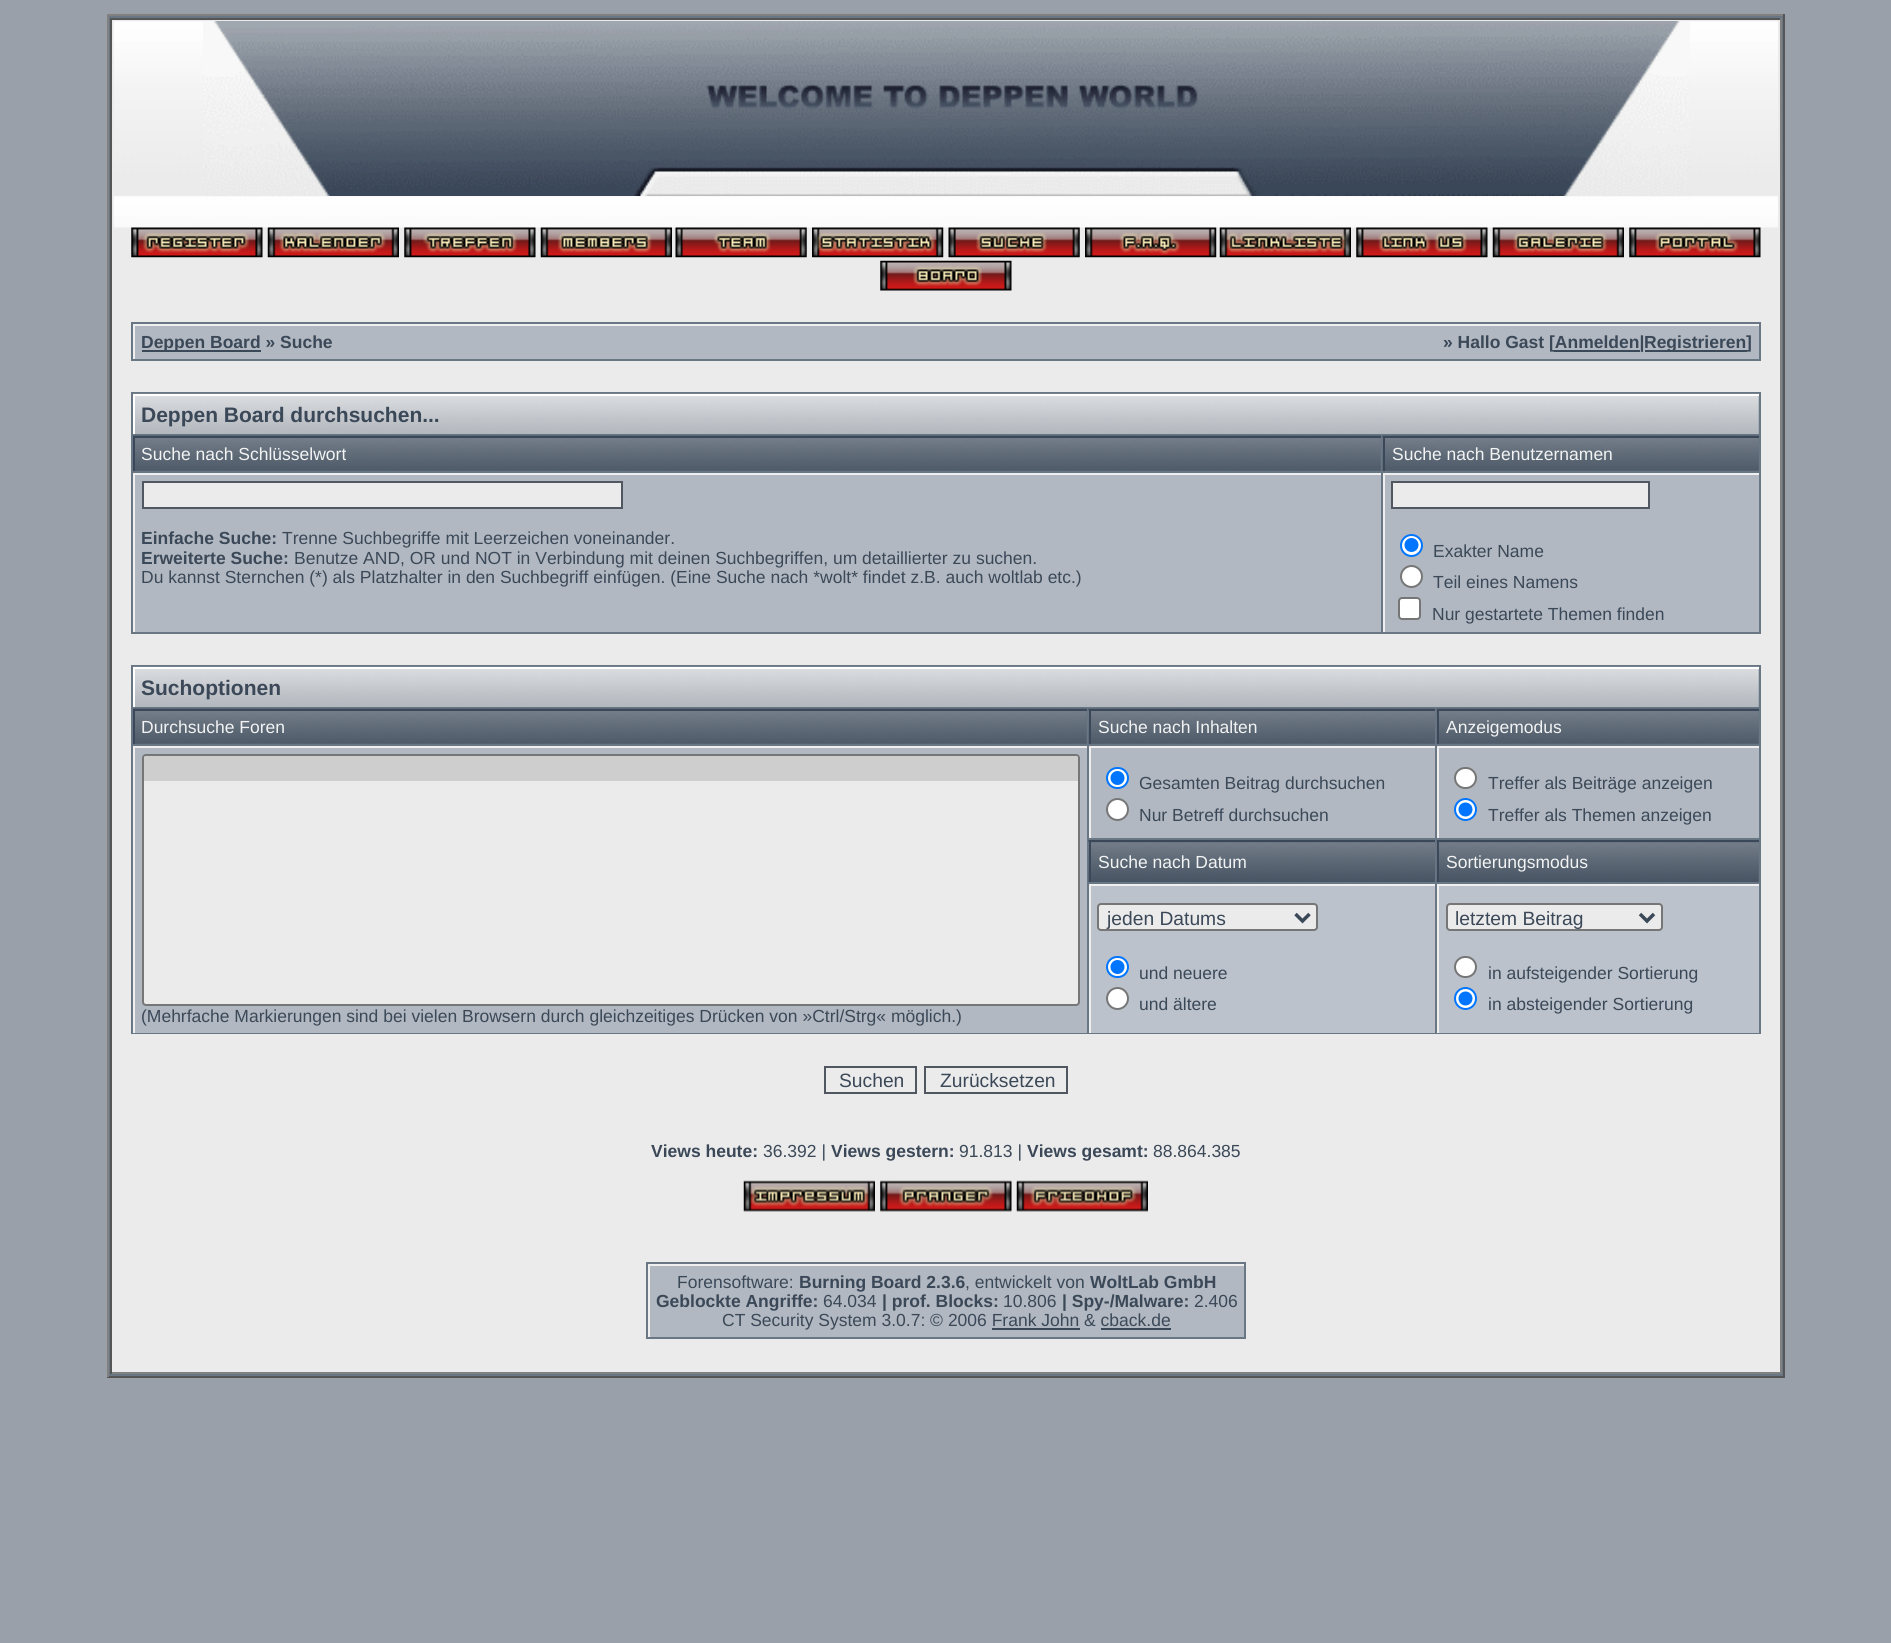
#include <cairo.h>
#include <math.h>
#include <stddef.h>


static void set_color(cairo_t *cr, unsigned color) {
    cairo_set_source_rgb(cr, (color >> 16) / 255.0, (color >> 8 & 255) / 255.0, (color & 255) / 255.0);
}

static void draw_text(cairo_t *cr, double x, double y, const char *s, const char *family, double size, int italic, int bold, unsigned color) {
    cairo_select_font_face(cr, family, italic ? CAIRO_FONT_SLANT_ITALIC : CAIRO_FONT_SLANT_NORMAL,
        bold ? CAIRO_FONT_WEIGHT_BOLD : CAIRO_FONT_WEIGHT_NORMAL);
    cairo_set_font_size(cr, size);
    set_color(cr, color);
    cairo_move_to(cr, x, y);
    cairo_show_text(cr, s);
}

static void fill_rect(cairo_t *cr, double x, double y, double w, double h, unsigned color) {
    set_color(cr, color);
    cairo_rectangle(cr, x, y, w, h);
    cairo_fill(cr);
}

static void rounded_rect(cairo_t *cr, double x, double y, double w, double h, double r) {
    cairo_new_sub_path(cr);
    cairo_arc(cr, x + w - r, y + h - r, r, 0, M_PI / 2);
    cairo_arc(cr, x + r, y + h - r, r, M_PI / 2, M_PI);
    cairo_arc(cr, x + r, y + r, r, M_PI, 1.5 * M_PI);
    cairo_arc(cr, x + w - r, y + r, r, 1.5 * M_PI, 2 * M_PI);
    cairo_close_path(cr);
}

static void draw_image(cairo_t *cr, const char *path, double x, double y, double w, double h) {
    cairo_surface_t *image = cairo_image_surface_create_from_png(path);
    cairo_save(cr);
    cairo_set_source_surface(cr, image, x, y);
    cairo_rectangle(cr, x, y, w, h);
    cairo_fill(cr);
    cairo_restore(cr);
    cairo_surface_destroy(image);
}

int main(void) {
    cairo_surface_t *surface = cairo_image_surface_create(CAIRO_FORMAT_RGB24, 1891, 1643);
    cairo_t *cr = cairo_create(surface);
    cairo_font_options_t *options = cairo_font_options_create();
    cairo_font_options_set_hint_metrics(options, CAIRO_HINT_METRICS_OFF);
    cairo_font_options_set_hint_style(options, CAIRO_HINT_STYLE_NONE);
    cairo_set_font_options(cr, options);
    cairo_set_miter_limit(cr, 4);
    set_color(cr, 0x9AA0A9);
    cairo_paint(cr);
    fill_rect(cr, 109, 16, 1674, 1360, 0x697684);
    fill_rect(cr, 107, 14, 1678, 2, 0x808080);
    fill_rect(cr, 1783, 14, 2, 1363, 0x555555);
    fill_rect(cr, 107, 1376, 1678, 2, 0x555555);
    fill_rect(cr, 107, 14, 2, 1363, 0x808080);
    fill_rect(cr, 112, 20, 1668, 1352, 0xEBEBEB);
    fill_rect(cr, 110, 18, 1672, 2, 0x555555);
    fill_rect(cr, 1780, 18, 2, 1356, 0x808080);
    fill_rect(cr, 110, 1372, 1672, 2, 0x808080);
    fill_rect(cr, 110, 18, 2, 1356, 0x555555);
    draw_image(cr, "assets/img1.png", 113, 21, 1665, 207);
    draw_image(cr, "assets/img2.png", 203, 21, 1487, 175);
    draw_image(cr, "assets/img3.png", 131, 227, 132, 31);
    draw_image(cr, "assets/img4.png", 267, 227, 132, 31);
    draw_image(cr, "assets/img5.png", 404, 227, 132, 31);
    draw_image(cr, "assets/img6.png", 540, 227, 132, 31);
    draw_image(cr, "assets/img7.png", 675, 227, 132, 31);
    draw_image(cr, "assets/img8.png", 812, 227, 132, 31);
    draw_image(cr, "assets/img9.png", 948, 227, 132, 31);
    draw_image(cr, "assets/img10.png", 1085, 227, 132, 31);
    draw_image(cr, "assets/img11.png", 1219, 227, 132, 31);
    draw_image(cr, "assets/img12.png", 1356, 227, 132, 31);
    draw_image(cr, "assets/img13.png", 1492, 227, 132, 31);
    draw_image(cr, "assets/img14.png", 1629, 227, 132, 31);
    draw_image(cr, "assets/img15.png", 880, 260, 132, 31);
    fill_rect(cr, 131, 322, 1630, 39, 0x697684);
    fill_rect(cr, 135, 326, 1624, 33, 0xB1B8C1);
    fill_rect(cr, 133, 324, 1626, 2, 0xEFEFEF);
    fill_rect(cr, 133, 324, 2, 35, 0xEFEFEF);
    fill_rect(cr, 142, 350, 119, 2, 0x3B4858);
    draw_text(cr, 141, 348, "Deppen Board » Suche", "Liberation Sans", 17.5, 0, 1, 0x3B4858);
    draw_text(cr, 1443, 348, "» Hallo Gast [Anmelden|", "Liberation Sans", 17.5, 0, 1, 0x3B4858);
    fill_rect(cr, 1554, 350, 86, 2, 0x3B4858);
    fill_rect(cr, 1645, 350, 102, 2, 0x3B4858);
    draw_text(cr, 1644, 348, "Registrieren]", "Liberation Sans", 17.5, 0, 1, 0x3B4858);
    fill_rect(cr, 131, 392, 1630, 242, 0x697684);
    draw_image(cr, "assets/img16.png", 133, 393, 1626, 41);
    fill_rect(cr, 133, 394, 1626, 2, 0xFFFFFF);
    fill_rect(cr, 133, 394, 2, 40, 0xFFFFFF);
    draw_text(cr, 141, 422, "Deppen Board durchsuchen...", "Liberation Sans", 21, 0, 1, 0x3B4858);
    draw_image(cr, "assets/img17.png", 133, 435, 1248, 36);
    fill_rect(cr, 133, 436, 1248, 2, 0x3A4859);
    fill_rect(cr, 133, 436, 2, 35, 0x3A4859);
    draw_text(cr, 141, 460, "Suche nach Schlüsselwort", "Liberation Sans", 17.5, 0, 0, 0xF2F3F3);
    draw_image(cr, "assets/img18.png", 1382, 435, 377, 36);
    fill_rect(cr, 1383, 436, 376, 2, 0x3A4859);
    fill_rect(cr, 1383, 436, 2, 35, 0x3A4859);
    draw_text(cr, 1392, 460, "Suche nach Benutzernamen", "Liberation Sans", 17.5, 0, 0, 0xF2F3F3);
    fill_rect(cr, 135, 475, 1246, 157, 0xB1B8C1);
    fill_rect(cr, 133, 473, 1248, 2, 0xEFEFEF);
    fill_rect(cr, 133, 473, 2, 159, 0xEFEFEF);
    set_color(cr, 0xEBEBEB);
    cairo_rectangle(cr, 143, 482, 479, 26);
    cairo_fill_preserve(cr);
    set_color(cr, 0x515761);
    cairo_stroke(cr);
    draw_text(cr, 141, 544, "Einfache Suche:", "Liberation Sans", 17.5, 0, 1, 0x3B4858);
    draw_text(cr, 282, 544, "Trenne Suchbegriffe mit Leerzeichen voneinander.", "Liberation Sans", 17.5, 0, 0, 0x3B4858);
    draw_text(cr, 141, 564, "Erweiterte Suche:", "Liberation Sans", 17.5, 0, 1, 0x3B4858);
    draw_text(cr, 294, 564, "Benutze AND, OR und NOT in Verbindung mit deinen Suchbegriffen, um detaillierter zu suchen.", "Liberation Sans", 17.5, 0, 0, 0x3B4858);
    draw_text(cr, 141, 583, "Du kannst Sternchen (*) als Platzhalter in den Suchbegriff einfügen. (Eine Suche nach *wolt* findet z.B. auch woltlab etc.)", "Liberation Sans", 17.5, 0, 0, 0x3B4858);
    fill_rect(cr, 1385, 475, 374, 157, 0xB1B8C1);
    fill_rect(cr, 1383, 473, 376, 2, 0xEFEFEF);
    fill_rect(cr, 1383, 473, 2, 159, 0xEFEFEF);
    set_color(cr, 0xEBEBEB);
    cairo_rectangle(cr, 1392, 482, 257, 26);
    cairo_fill_preserve(cr);
    set_color(cr, 0x515761);
    cairo_stroke(cr);
    set_color(cr, 0xFFFFFF);
    cairo_arc(cr, 1411.5, 545.5, 10.5, 0, 2 * M_PI);
    cairo_fill_preserve(cr);
    set_color(cr, 0x0075FF);
    cairo_stroke(cr);
    cairo_arc(cr, 1411.5, 545, 7, 0, 2 * M_PI);
    cairo_fill(cr);
    draw_text(cr, 1433, 557, "Exakter Name", "Liberation Sans", 17.5, 0, 0, 0x3B4858);
    set_color(cr, 0xFFFFFF);
    cairo_new_path(cr);
    cairo_arc(cr, 1411.5, 576.5, 10.5, 0, 2 * M_PI);
    cairo_fill_preserve(cr);
    set_color(cr, 0x767676);
    cairo_stroke(cr);
    draw_text(cr, 1433, 588, "Teil eines Namens", "Liberation Sans", 17.5, 0, 0, 0x3B4858);
    set_color(cr, 0xFFFFFF);
    rounded_rect(cr, 1399, 598, 21, 21, 3);
    cairo_fill_preserve(cr);
    set_color(cr, 0x767676);
    cairo_stroke(cr);
    draw_text(cr, 1432, 620, "Nur gestartete Themen finden", "Liberation Sans", 17.5, 0, 0, 0x3B4858);
    fill_rect(cr, 131, 665, 1630, 369, 0x697684);
    draw_image(cr, "assets/img16.png", 133, 666, 1626, 41);
    fill_rect(cr, 133, 667, 1626, 2, 0xFFFFFF);
    fill_rect(cr, 133, 667, 2, 40, 0xFFFFFF);
    draw_text(cr, 141, 695, "Suchoptionen", "Liberation Sans", 21, 0, 1, 0x3B4858);
    draw_image(cr, "assets/img19.png", 133, 708, 954, 36);
    fill_rect(cr, 133, 709, 954, 2, 0x3A4859);
    fill_rect(cr, 133, 709, 2, 35, 0x3A4859);
    draw_text(cr, 141, 733, "Durchsuche Foren", "Liberation Sans", 17.5, 0, 0, 0xF2F3F3);
    draw_image(cr, "assets/img20.png", 1088, 708, 347, 36);
    fill_rect(cr, 1089, 709, 346, 2, 0x3A4859);
    fill_rect(cr, 1089, 709, 2, 35, 0x3A4859);
    draw_text(cr, 1098, 733, "Suche nach Inhalten", "Liberation Sans", 17.5, 0, 0, 0xF2F3F3);
    draw_image(cr, "assets/img21.png", 1436, 708, 323, 36);
    fill_rect(cr, 1437, 709, 322, 2, 0x3A4859);
    fill_rect(cr, 1437, 709, 2, 35, 0x3A4859);
    draw_text(cr, 1446, 733, "Anzeigemodus", "Liberation Sans", 17.5, 0, 0, 0xF2F3F3);
    fill_rect(cr, 1091, 748, 344, 90, 0xB1B8C1);
    fill_rect(cr, 1089, 746, 346, 2, 0xEFEFEF);
    fill_rect(cr, 1089, 746, 2, 92, 0xEFEFEF);
    set_color(cr, 0xFFFFFF);
    rounded_rect(cr, 1107, 768, 21, 20, 10);
    cairo_fill_preserve(cr);
    set_color(cr, 0x0075FF);
    cairo_stroke(cr);
    cairo_arc(cr, 1117.5, 778, 7, 0, 2 * M_PI);
    cairo_fill(cr);
    draw_text(cr, 1139, 789, "Gesamten Beitrag durchsuchen", "Liberation Sans", 17.5, 0, 0, 0x3B4858);
    set_color(cr, 0xFFFFFF);
    cairo_new_path(cr);
    cairo_arc(cr, 1117.5, 809.5, 10.5, 0, 2 * M_PI);
    cairo_fill_preserve(cr);
    set_color(cr, 0x767676);
    cairo_stroke(cr);
    draw_text(cr, 1139, 821, "Nur Betreff durchsuchen", "Liberation Sans", 17.5, 0, 0, 0x3B4858);
    fill_rect(cr, 1439, 748, 320, 90, 0xB1B8C1);
    fill_rect(cr, 1437, 746, 322, 2, 0xEFEFEF);
    fill_rect(cr, 1437, 746, 2, 92, 0xEFEFEF);
    set_color(cr, 0xFFFFFF);
    rounded_rect(cr, 1455, 768, 21, 20, 10);
    cairo_fill_preserve(cr);
    set_color(cr, 0x767676);
    cairo_stroke(cr);
    draw_text(cr, 1488, 789, "Treffer als Beiträge anzeigen", "Liberation Sans", 17.5, 0, 0, 0x3B4858);
    set_color(cr, 0xFFFFFF);
    cairo_new_path(cr);
    cairo_arc(cr, 1465.5, 809.5, 10.5, 0, 2 * M_PI);
    cairo_fill_preserve(cr);
    set_color(cr, 0x0075FF);
    cairo_stroke(cr);
    cairo_arc(cr, 1465.5, 809.5, 7, 0, 2 * M_PI);
    cairo_fill(cr);
    draw_text(cr, 1488, 821, "Treffer als Themen anzeigen", "Liberation Sans", 17.5, 0, 0, 0x3B4858);
    fill_rect(cr, 135, 748, 952, 285, 0xB1B8C1);
    fill_rect(cr, 133, 746, 954, 2, 0xEFEFEF);
    fill_rect(cr, 133, 746, 2, 287, 0xEFEFEF);
    set_color(cr, 0xEBEBEB);
    rounded_rect(cr, 143, 755, 936, 250, 3);
    cairo_fill_preserve(cr);
    set_color(cr, 0x767676);
    cairo_stroke(cr);
    set_color(cr, 0xCECECE);
    cairo_new_path(cr);
    cairo_move_to(cr, 146, 756);
    cairo_line_to(cr, 1076, 756);
    cairo_curve_to(cr, 1077, 756, 1078, 757, 1078, 758);
    cairo_line_to(cr, 1078, 781);
    cairo_line_to(cr, 144, 781);
    cairo_line_to(cr, 144, 758);
    cairo_curve_to(cr, 144, 757, 145, 756, 146, 756);
    cairo_close_path(cr);
    cairo_fill(cr);
    draw_text(cr, 141, 1022, "(Mehrfache Markierungen sind bei vielen Browsern durch gleichzeitiges Drücken von »Ctrl/Strg« möglich.)", "Liberation Sans", 17.5, 0, 0, 0x3B4858);
    draw_image(cr, "assets/img22.png", 1088, 840, 347, 42);
    fill_rect(cr, 1089, 840, 346, 2, 0x3A4859);
    fill_rect(cr, 1089, 840, 2, 42, 0x3A4859);
    draw_text(cr, 1098, 868, "Suche nach Datum", "Liberation Sans", 17.5, 0, 0, 0xF2F3F3);
    draw_image(cr, "assets/img23.png", 1436, 840, 323, 42);
    fill_rect(cr, 1437, 840, 322, 2, 0x3A4859);
    fill_rect(cr, 1437, 840, 2, 42, 0x3A4859);
    draw_text(cr, 1446, 868, "Sortierungsmodus", "Liberation Sans", 17.5, 0, 0, 0xF2F3F3);
    fill_rect(cr, 1091, 886, 344, 147, 0xBBC2CB);
    fill_rect(cr, 1089, 884, 346, 2, 0xEFEFEF);
    fill_rect(cr, 1089, 884, 2, 149, 0xEFEFEF);
    set_color(cr, 0xEBEBEB);
    rounded_rect(cr, 1098, 904, 219, 26, 3);
    cairo_fill_preserve(cr);
    set_color(cr, 0x767676);
    cairo_stroke(cr);
    cairo_new_path(cr);
    cairo_move_to(cr, 1295.5, 914);
    cairo_line_to(cr, 1302.5, 921);
    cairo_line_to(cr, 1309.5, 914);
    set_color(cr, 0x3B4858);
    cairo_set_line_width(cr, 3.5);
    cairo_stroke(cr);
    draw_text(cr, 1107, 925, "jeden Datums", "Liberation Sans", 19.25, 0, 0, 0x3B4858);
    set_color(cr, 0xFFFFFF);
    rounded_rect(cr, 1107, 957, 21, 20, 10);
    cairo_fill_preserve(cr);
    set_color(cr, 0x0075FF);
    cairo_set_line_width(cr, 2);
    cairo_stroke(cr);
    cairo_arc(cr, 1117.5, 967, 7, 0, 2 * M_PI);
    cairo_fill(cr);
    draw_text(cr, 1139, 979, "und neuere", "Liberation Sans", 17.5, 0, 0, 0x3B4858);
    set_color(cr, 0xFFFFFF);
    cairo_new_path(cr);
    cairo_arc(cr, 1117.5, 998.5, 10.5, 0, 2 * M_PI);
    cairo_fill_preserve(cr);
    set_color(cr, 0x767676);
    cairo_stroke(cr);
    draw_text(cr, 1139, 1010, "und ältere", "Liberation Sans", 17.5, 0, 0, 0x3B4858);
    fill_rect(cr, 1439, 886, 320, 147, 0xBBC2CB);
    fill_rect(cr, 1437, 884, 322, 2, 0xEFEFEF);
    fill_rect(cr, 1437, 884, 2, 149, 0xEFEFEF);
    set_color(cr, 0xEBEBEB);
    rounded_rect(cr, 1447, 904, 215, 26, 3);
    cairo_fill_preserve(cr);
    set_color(cr, 0x767676);
    cairo_stroke(cr);
    cairo_new_path(cr);
    cairo_move_to(cr, 1640, 914);
    cairo_line_to(cr, 1647, 921);
    cairo_line_to(cr, 1654, 914);
    set_color(cr, 0x3B4858);
    cairo_set_line_width(cr, 3.5);
    cairo_stroke(cr);
    draw_text(cr, 1455, 925, "letztem Beitrag", "Liberation Sans", 19.25, 0, 0, 0x3B4858);
    set_color(cr, 0xFFFFFF);
    rounded_rect(cr, 1455, 957, 21, 20, 10);
    cairo_fill_preserve(cr);
    set_color(cr, 0x767676);
    cairo_set_line_width(cr, 2);
    cairo_stroke(cr);
    draw_text(cr, 1488, 979, "in aufsteigender Sortierung", "Liberation Sans", 17.5, 0, 0, 0x3B4858);
    set_color(cr, 0xFFFFFF);
    cairo_new_path(cr);
    cairo_arc(cr, 1465.5, 998.5, 10.5, 0, 2 * M_PI);
    cairo_fill_preserve(cr);
    set_color(cr, 0x0075FF);
    cairo_stroke(cr);
    cairo_arc(cr, 1465.5, 998.5, 7, 0, 2 * M_PI);
    cairo_fill(cr);
    draw_text(cr, 1488, 1010, "in absteigender Sortierung", "Liberation Sans", 17.5, 0, 0, 0x3B4858);
    cairo_rectangle(cr, 825, 1067, 91, 26);
    set_color(cr, 0x515761);
    cairo_stroke(cr);
    draw_text(cr, 839, 1087, "Suchen", "Liberation Sans", 19.25, 0, 0, 0x3B4858);
    cairo_rectangle(cr, 925, 1067, 142, 26);
    set_color(cr, 0x515761);
    cairo_stroke(cr);
    draw_text(cr, 940, 1087, "Zurücksetzen", "Liberation Sans", 19.25, 0, 0, 0x3B4858);
    draw_text(cr, 651, 1157, "Views heute:", "Liberation Sans", 17.5, 0, 1, 0x3B4858);
    draw_text(cr, 763, 1157, "36.392 |", "Liberation Sans", 17.5, 0, 0, 0x3B4858);
    draw_text(cr, 831, 1157, "Views gestern:", "Liberation Sans", 17.5, 0, 1, 0x3B4858);
    draw_text(cr, 959, 1157, "91.813 |", "Liberation Sans", 17.5, 0, 0, 0x3B4858);
    draw_text(cr, 1027, 1157, "Views gesamt:", "Liberation Sans", 17.5, 0, 1, 0x3B4858);
    draw_text(cr, 1153, 1157, "88.864.385", "Liberation Sans", 17.5, 0, 0, 0x3B4858);
    draw_image(cr, "assets/img24.png", 743, 1180, 132, 32);
    draw_image(cr, "assets/img25.png", 880, 1180, 132, 32);
    draw_image(cr, "assets/img26.png", 1016, 1180, 132, 32);
    fill_rect(cr, 646, 1262, 600, 77, 0x697684);
    fill_rect(cr, 650, 1266, 594, 71, 0xB1B8C1);
    fill_rect(cr, 648, 1264, 596, 2, 0xEFEFEF);
    fill_rect(cr, 648, 1264, 2, 73, 0xEFEFEF);
    draw_text(cr, 677, 1288, "Forensoftware:", "Liberation Sans", 17.5, 0, 0, 0x3B4858);
    draw_text(cr, 799, 1288, "Burning Board 2.3.6", "Liberation Sans", 17.5, 0, 1, 0x3B4858);
    draw_text(cr, 965, 1288, ", entwickelt von", "Liberation Sans", 17.5, 0, 0, 0x3B4858);
    draw_text(cr, 1090, 1288, "WoltLab GmbH", "Liberation Sans", 17.5, 0, 1, 0x3B4858);
    draw_text(cr, 656, 1307, "Geblockte Angriffe:", "Liberation Sans", 17.5, 0, 1, 0x3B4858);
    draw_text(cr, 823, 1307, "64.034", "Liberation Sans", 17.5, 0, 0, 0x3B4858);
    draw_text(cr, 882, 1307, "| prof. Blocks:", "Liberation Sans", 17.5, 0, 1, 0x3B4858);
    draw_text(cr, 1003, 1307, "10.806", "Liberation Sans", 17.5, 0, 0, 0x3B4858);
    draw_text(cr, 1062, 1307, "| Spy-/Malware:", "Liberation Sans", 17.5, 0, 1, 0x3B4858);
    draw_text(cr, 1194, 1307, "2.406", "Liberation Sans", 17.5, 0, 0, 0x3B4858);
    draw_text(cr, 722, 1326, "CT Security System 3.0.7: © 2006 Frank John & cback.de", "Liberation Sans", 17.5, 0, 0, 0x3B4858);
    fill_rect(cr, 992, 1328, 88, 2, 0x3B4858);
    fill_rect(cr, 1101, 1328, 70, 2, 0x3B4858);
    cairo_surface_write_to_png(surface, "output.png");
    cairo_font_options_destroy(options);
    cairo_destroy(cr);
    cairo_surface_destroy(surface);
    return 0;
}
